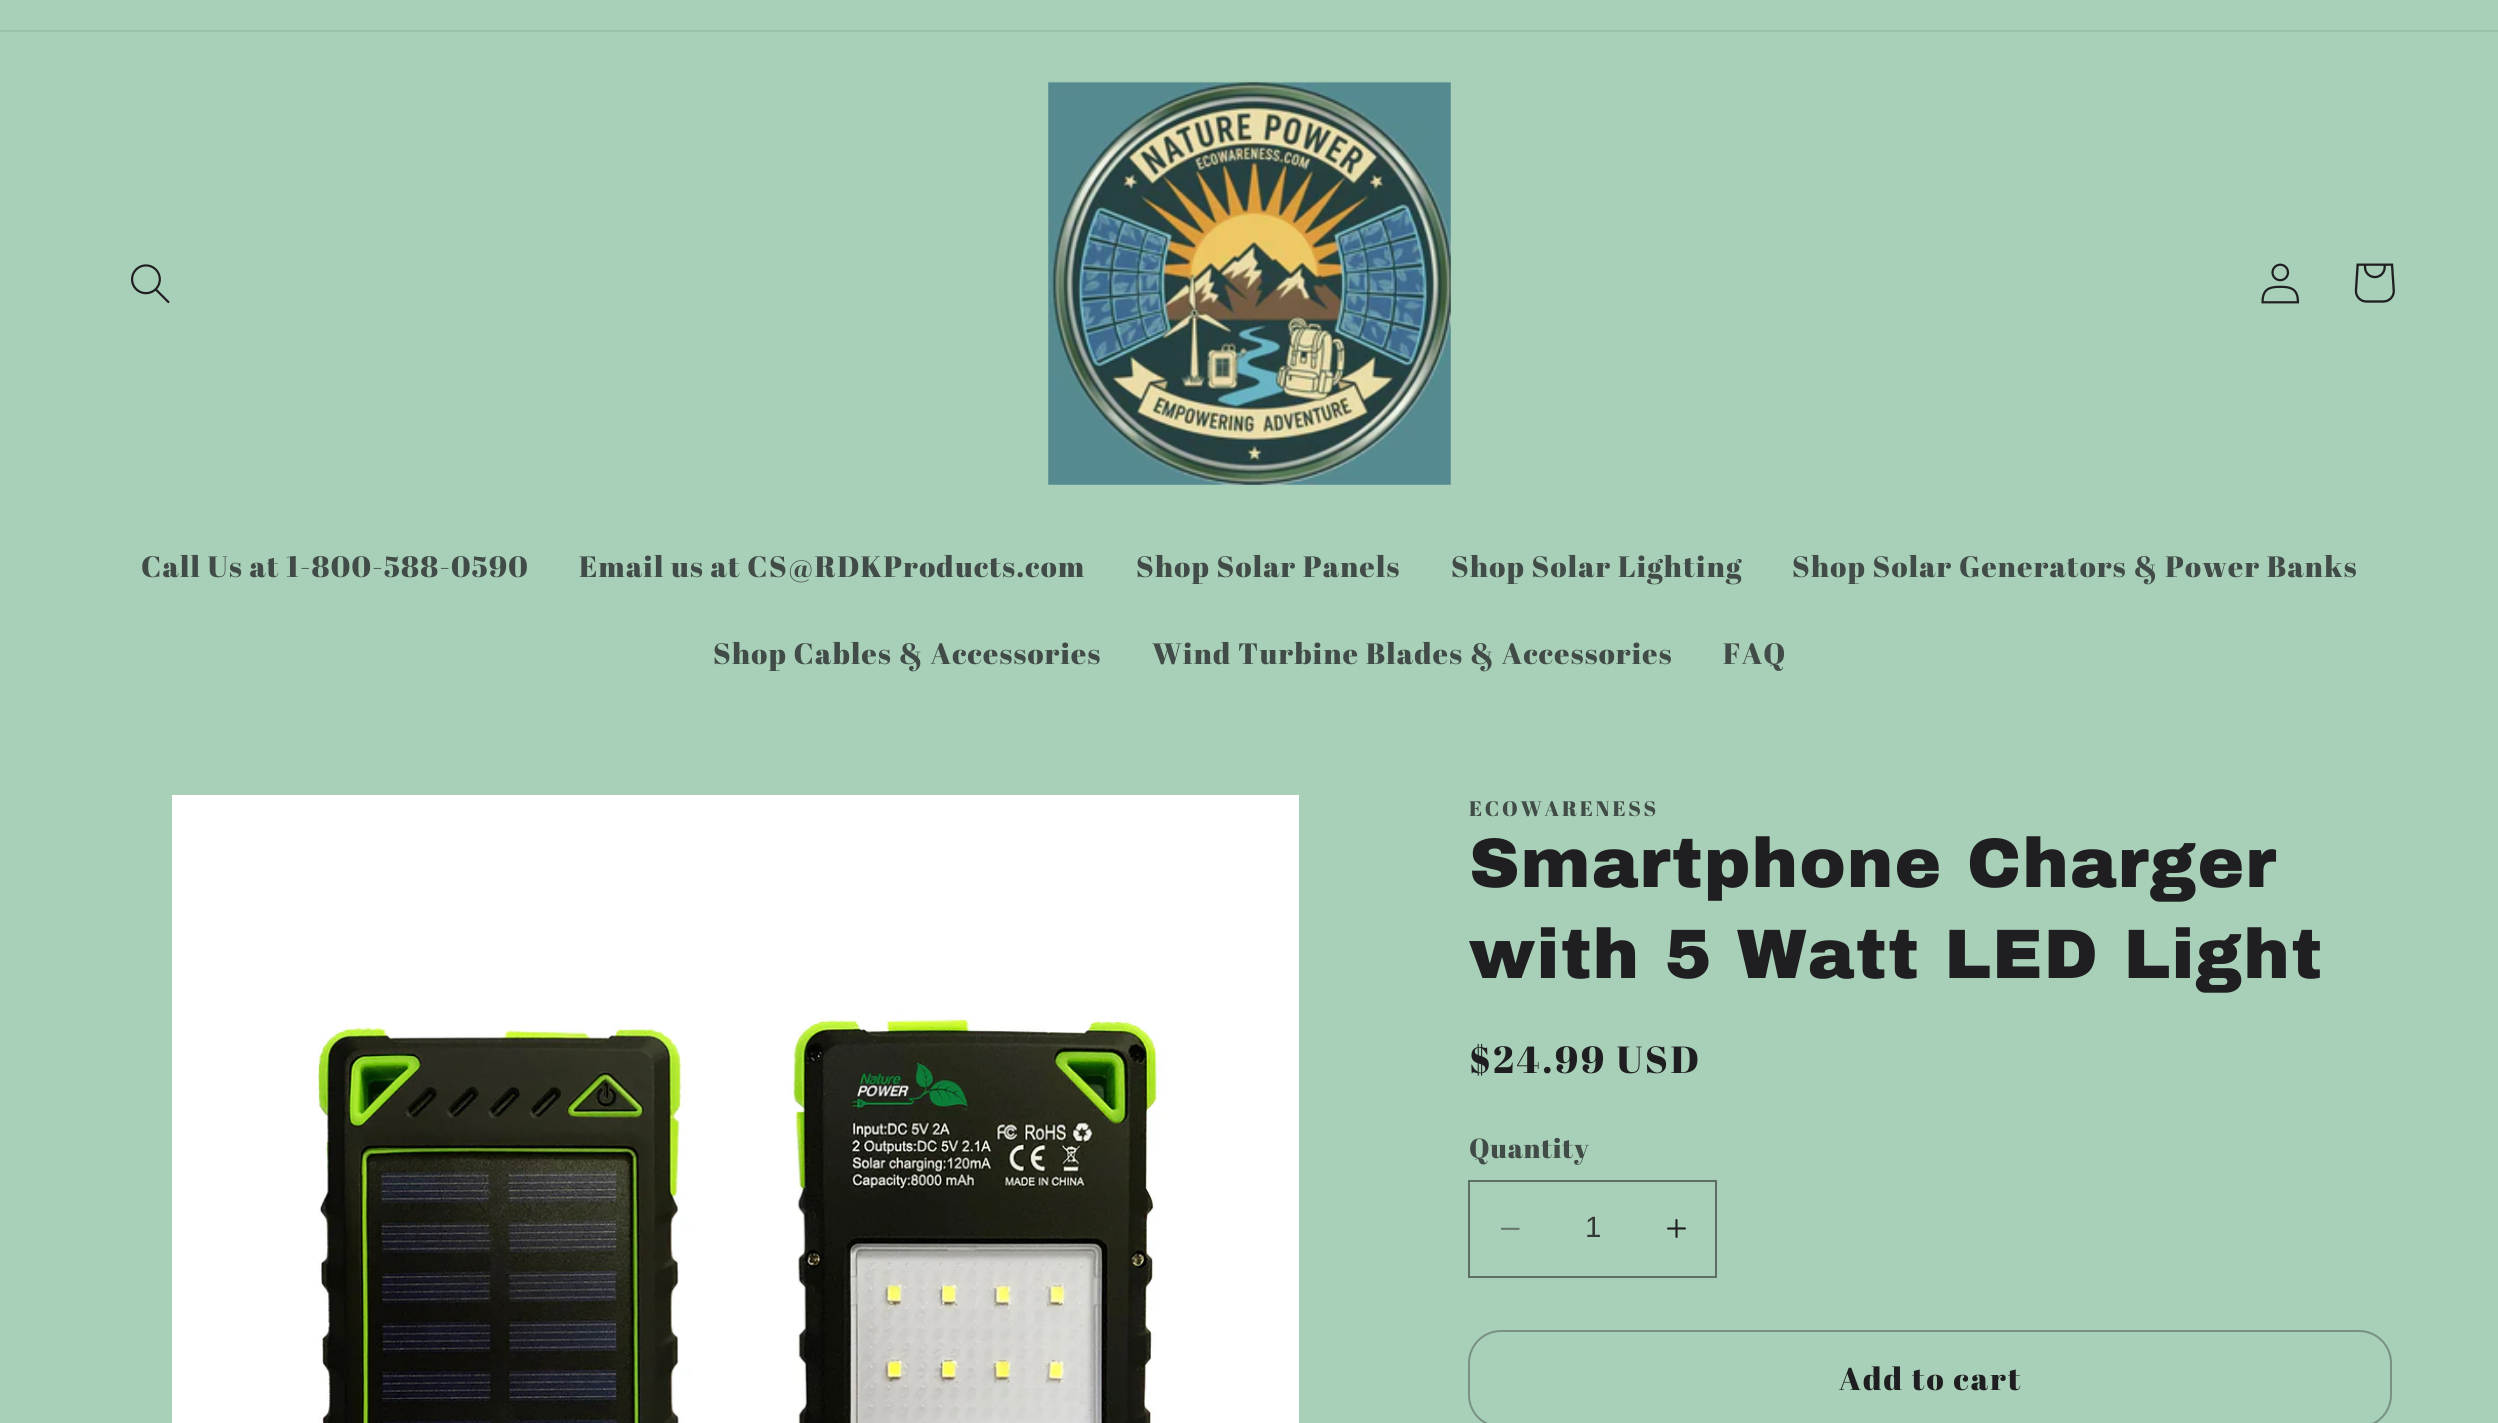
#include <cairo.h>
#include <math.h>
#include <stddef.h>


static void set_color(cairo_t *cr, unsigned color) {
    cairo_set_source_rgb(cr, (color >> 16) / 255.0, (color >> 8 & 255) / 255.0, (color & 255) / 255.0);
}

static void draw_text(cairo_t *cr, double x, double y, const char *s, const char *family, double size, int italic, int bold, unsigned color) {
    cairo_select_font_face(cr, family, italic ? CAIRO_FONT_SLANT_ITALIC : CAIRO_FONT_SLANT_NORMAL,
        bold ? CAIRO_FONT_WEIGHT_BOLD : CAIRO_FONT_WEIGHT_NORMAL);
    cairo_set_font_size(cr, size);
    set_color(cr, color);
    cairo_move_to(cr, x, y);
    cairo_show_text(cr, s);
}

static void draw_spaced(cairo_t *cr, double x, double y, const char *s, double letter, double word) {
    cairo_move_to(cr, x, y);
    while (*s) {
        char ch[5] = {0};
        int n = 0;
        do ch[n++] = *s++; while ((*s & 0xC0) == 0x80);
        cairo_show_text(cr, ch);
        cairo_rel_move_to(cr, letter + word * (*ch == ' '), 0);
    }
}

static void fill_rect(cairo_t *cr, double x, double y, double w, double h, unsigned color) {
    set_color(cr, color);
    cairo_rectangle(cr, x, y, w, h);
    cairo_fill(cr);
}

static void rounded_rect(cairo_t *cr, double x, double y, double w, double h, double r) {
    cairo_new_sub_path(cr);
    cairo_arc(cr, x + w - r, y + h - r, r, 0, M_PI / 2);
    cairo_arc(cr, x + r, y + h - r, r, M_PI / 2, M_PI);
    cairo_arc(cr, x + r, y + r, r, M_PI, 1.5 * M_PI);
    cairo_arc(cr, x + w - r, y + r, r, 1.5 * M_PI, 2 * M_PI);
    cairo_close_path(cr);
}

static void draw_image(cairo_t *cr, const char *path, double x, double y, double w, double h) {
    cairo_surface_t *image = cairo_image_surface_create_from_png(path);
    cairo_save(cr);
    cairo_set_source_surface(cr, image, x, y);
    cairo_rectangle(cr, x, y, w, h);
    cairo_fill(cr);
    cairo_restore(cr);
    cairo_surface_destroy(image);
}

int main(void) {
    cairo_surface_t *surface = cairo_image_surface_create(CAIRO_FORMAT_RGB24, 2498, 1423);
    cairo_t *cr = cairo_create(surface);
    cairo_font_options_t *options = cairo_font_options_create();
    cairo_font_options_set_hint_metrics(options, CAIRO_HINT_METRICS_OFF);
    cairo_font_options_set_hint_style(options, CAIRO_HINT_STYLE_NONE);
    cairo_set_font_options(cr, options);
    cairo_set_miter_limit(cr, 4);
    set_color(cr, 0xA8CFB7);
    cairo_paint(cr);
    fill_rect(cr, 0, 30, 2498, 2, 0x9DC1AB);
    draw_image(cr, "assets/img1.png", 131, 264, 39, 40);
    draw_image(cr, "assets/img2.png", 1048, 81, 403, 404);
    draw_image(cr, "assets/img3.png", 2261, 263, 39, 41);
    draw_image(cr, "assets/img4.png", 2354, 263, 41, 40);
    cairo_select_font_face(cr, "Abril Fatface", CAIRO_FONT_SLANT_NORMAL, CAIRO_FONT_WEIGHT_NORMAL);
    cairo_set_font_size(cr, 29.4);
    set_color(cr, 0x414B47);
    draw_spaced(cr, 141, 577, "Call Us at 1-800-588-0590", 1.25, 0);
    draw_spaced(cr, 579, 577, "Email us at CS@RDKProducts.com", 1.25, 0);
    draw_spaced(cr, 1136, 577, "Shop Solar Panels", 1.25, 0);
    draw_spaced(cr, 1451, 577, "Shop Solar Lighting", 1.25, 0);
    draw_spaced(cr, 1792, 577, "Shop Solar Generators & Power Banks", 1.25, 0);
    draw_spaced(cr, 713, 664, "Shop Cables & Accessories", 1.25, 0);
    draw_spaced(cr, 1152, 664, "Wind Turbine Blades & Accessories", 1.25, 0);
    draw_spaced(cr, 1723, 664, "FAQ", 1.25, 0);
    draw_image(cr, "assets/img5.png", 172, 795, 1127, 628);
    cairo_set_font_size(cr, 21);
    draw_spaced(cr, 1469, 816, "ECOWARENESS", 2.75, 0);
    cairo_select_font_face(cr, "Archivo Black", CAIRO_FONT_SLANT_NORMAL, CAIRO_FONT_WEIGHT_NORMAL);
    cairo_set_font_size(cr, 70);
    set_color(cr, 0x1F1F21);
    draw_spaced(cr, 1469, 887, "Smartphone Charger", 1.05, 0);
    draw_spaced(cr, 1469, 978, "with 5 Watt LED Light", 1.05, 0);
    cairo_select_font_face(cr, "Abril Fatface", CAIRO_FONT_SLANT_NORMAL, CAIRO_FONT_WEIGHT_NORMAL);
    cairo_set_font_size(cr, 37.75);
    draw_spaced(cr, 1469, 1073, "$24.99 USD", 2.75, 0);
    cairo_set_font_size(cr, 27.5);
    set_color(cr, 0x414B47);
    draw_spaced(cr, 1469, 1158, "Quantity", 0.75, 0);
    draw_image(cr, "assets/img6.png", 1500, 1227, 20, 3);
    draw_image(cr, "assets/img7.png", 1667, 1219, 19, 19);
    cairo_rectangle(cr, 1469, 1181, 247, 96);
    set_color(cr, 0x5D6E65);
    cairo_stroke(cr);
    draw_text(cr, 1585, 1237, "1", "Liberation Sans", 29.4, 0, 0, 0x343938);
    rounded_rect(cr, 1469, 1331, 922, 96, 32);
    set_color(cr, 0x789183);
    cairo_stroke(cr);
    cairo_select_font_face(cr, "Abril Fatface", CAIRO_FONT_SLANT_NORMAL, CAIRO_FONT_WEIGHT_NORMAL);
    cairo_set_font_size(cr, 31.5);
    set_color(cr, 0x1F1F21);
    draw_spaced(cr, 1839, 1390, "Add to cart", 2.1, 0);
    cairo_surface_write_to_png(surface, "output.png");
    cairo_font_options_destroy(options);
    cairo_destroy(cr);
    cairo_surface_destroy(surface);
    return 0;
}
